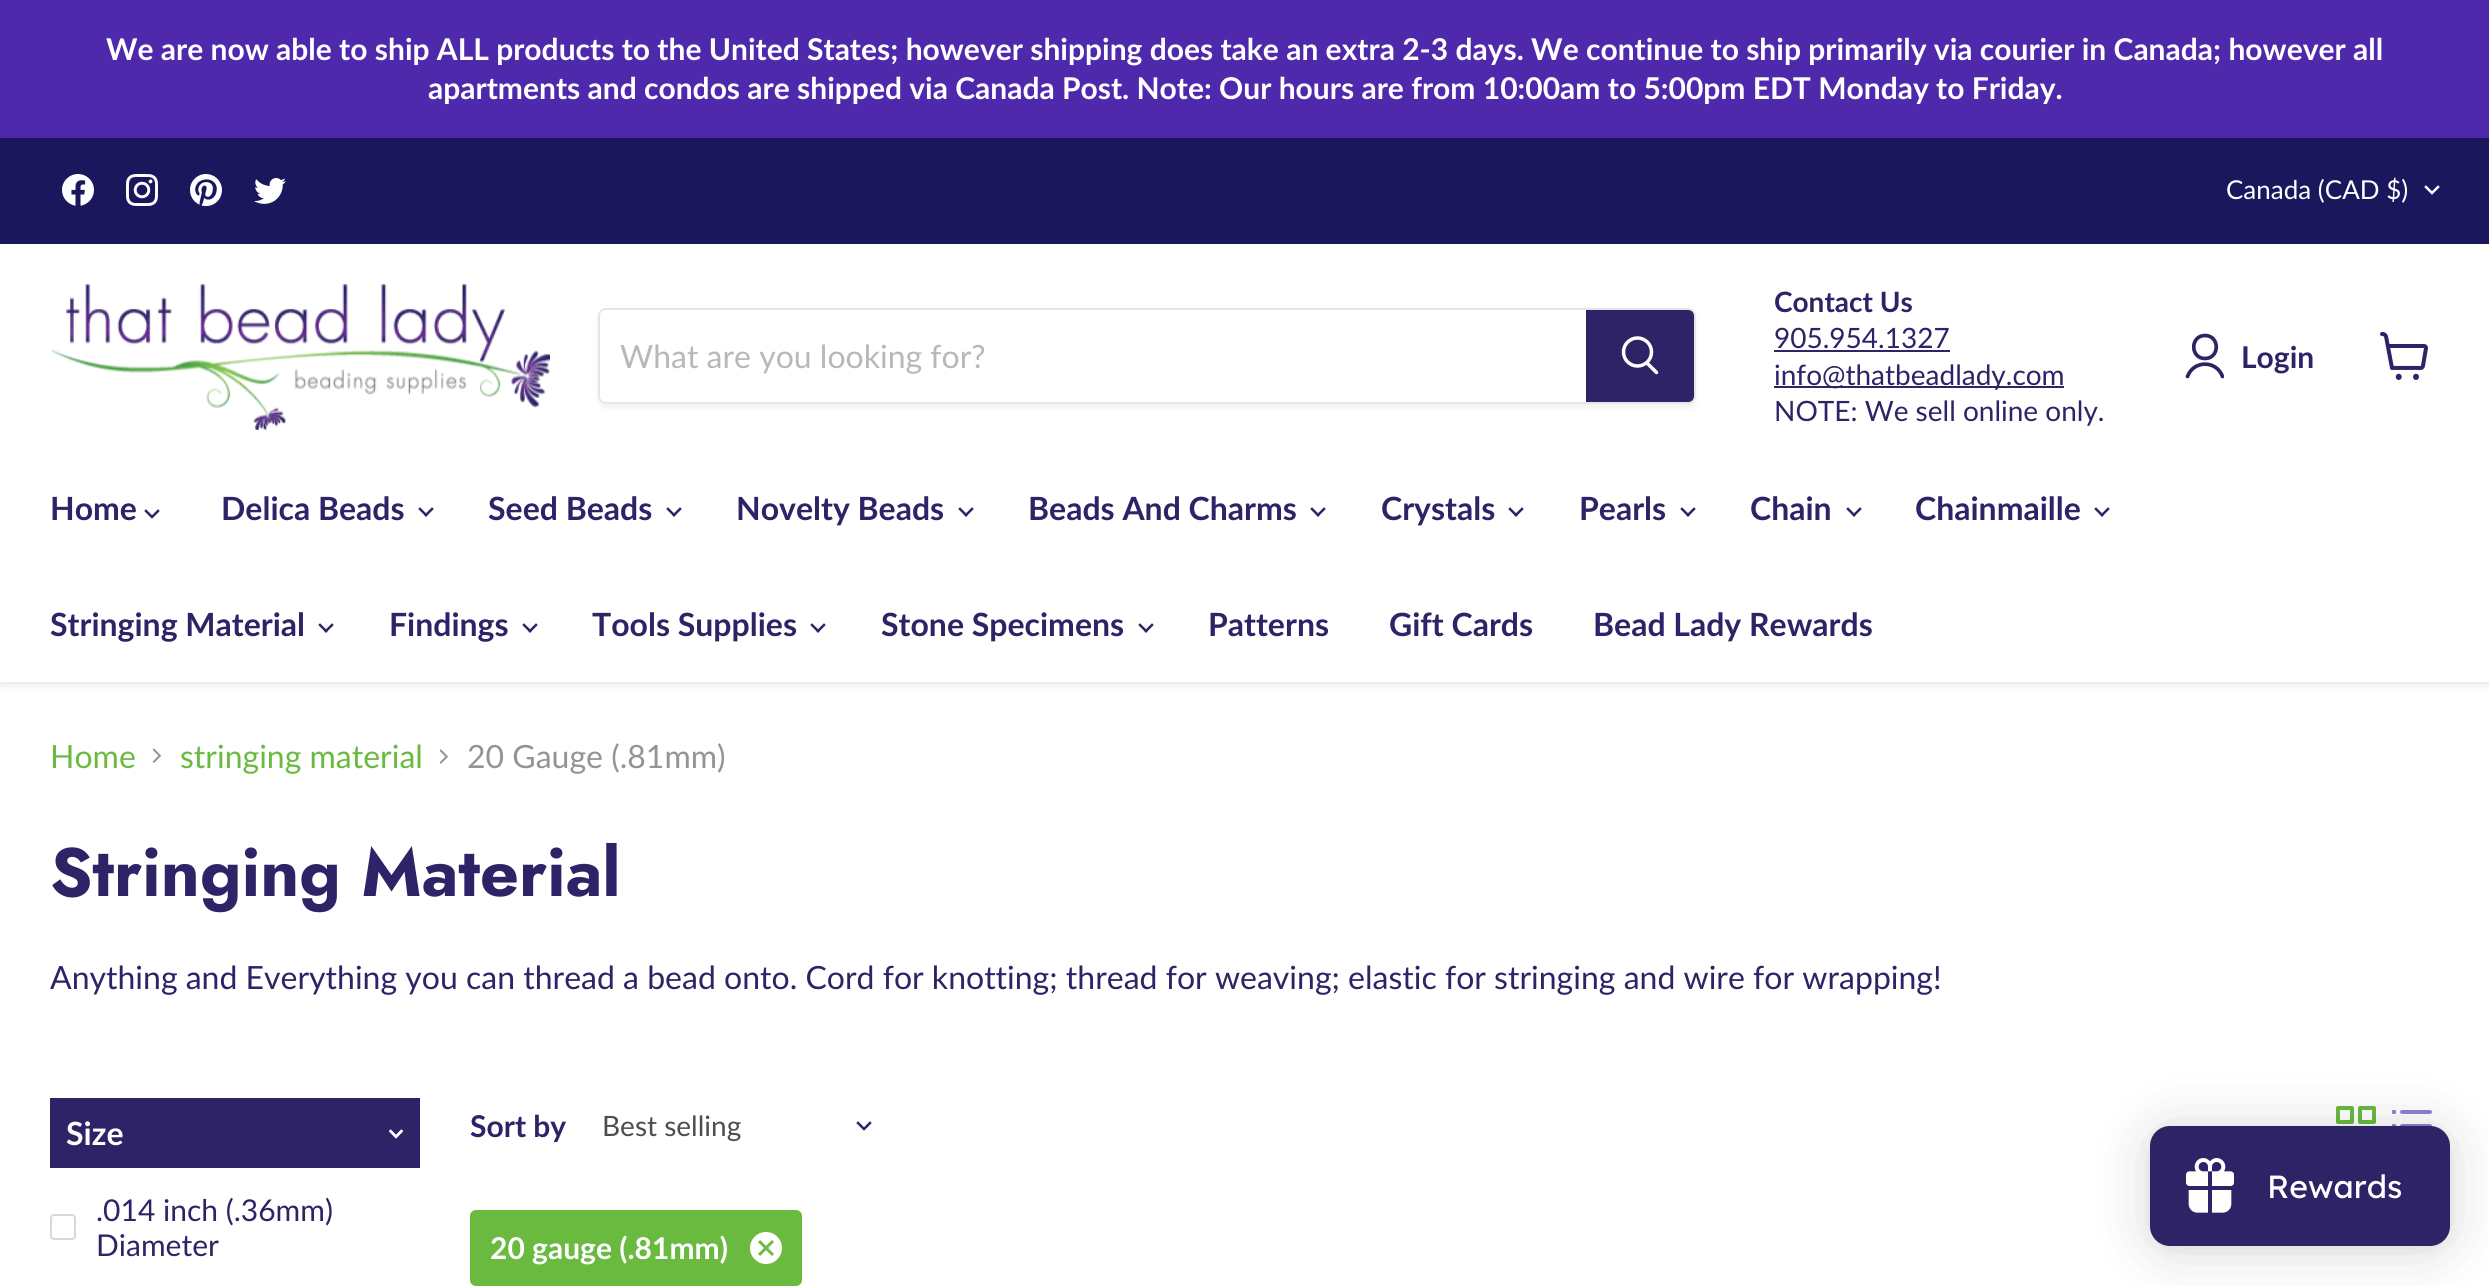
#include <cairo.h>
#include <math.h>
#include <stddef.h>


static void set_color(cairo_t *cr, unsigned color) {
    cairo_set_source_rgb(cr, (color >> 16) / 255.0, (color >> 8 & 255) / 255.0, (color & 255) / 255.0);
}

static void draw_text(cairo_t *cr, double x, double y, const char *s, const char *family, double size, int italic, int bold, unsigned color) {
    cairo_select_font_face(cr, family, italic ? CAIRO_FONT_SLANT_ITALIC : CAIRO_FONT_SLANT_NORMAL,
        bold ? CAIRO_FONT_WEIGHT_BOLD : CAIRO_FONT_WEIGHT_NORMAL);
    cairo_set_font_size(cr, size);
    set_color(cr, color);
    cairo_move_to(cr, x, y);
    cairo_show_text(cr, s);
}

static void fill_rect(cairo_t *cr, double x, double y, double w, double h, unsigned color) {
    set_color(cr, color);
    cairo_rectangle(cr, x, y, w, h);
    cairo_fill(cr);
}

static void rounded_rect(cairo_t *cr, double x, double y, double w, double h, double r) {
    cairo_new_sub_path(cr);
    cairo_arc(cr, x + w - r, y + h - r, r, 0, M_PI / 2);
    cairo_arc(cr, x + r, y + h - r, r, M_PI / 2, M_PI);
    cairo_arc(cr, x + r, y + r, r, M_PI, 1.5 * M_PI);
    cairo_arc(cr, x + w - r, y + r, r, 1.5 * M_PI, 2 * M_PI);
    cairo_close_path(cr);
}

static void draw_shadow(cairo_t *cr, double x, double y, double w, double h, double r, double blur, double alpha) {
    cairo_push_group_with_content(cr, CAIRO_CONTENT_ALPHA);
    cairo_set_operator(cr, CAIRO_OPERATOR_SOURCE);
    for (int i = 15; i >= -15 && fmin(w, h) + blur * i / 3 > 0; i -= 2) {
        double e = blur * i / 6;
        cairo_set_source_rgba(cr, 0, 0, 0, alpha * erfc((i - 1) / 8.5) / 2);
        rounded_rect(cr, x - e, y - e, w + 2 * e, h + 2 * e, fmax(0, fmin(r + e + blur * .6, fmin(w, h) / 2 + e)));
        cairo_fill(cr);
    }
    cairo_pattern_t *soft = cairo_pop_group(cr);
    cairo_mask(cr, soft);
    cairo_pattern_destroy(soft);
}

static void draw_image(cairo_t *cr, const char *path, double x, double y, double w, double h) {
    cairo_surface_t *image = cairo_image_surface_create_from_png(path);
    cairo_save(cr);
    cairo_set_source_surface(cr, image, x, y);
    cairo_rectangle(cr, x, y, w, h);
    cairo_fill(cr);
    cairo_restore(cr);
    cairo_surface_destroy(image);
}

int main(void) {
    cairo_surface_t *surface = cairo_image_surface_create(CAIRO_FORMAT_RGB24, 2489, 1286);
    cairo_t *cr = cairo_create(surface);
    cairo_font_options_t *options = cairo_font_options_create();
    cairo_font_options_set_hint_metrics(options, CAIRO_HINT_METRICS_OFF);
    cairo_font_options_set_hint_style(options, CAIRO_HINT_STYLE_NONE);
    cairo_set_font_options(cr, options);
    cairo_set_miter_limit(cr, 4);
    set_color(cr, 0xFFFFFF);
    cairo_paint(cr);
    fill_rect(cr, 0, 0, 2489, 138, 0x4E29AC);
    draw_text(cr, 106, 60, "We are now able to ship ALL products to the United States; however shipping does take an extra 2-3 days. We continue to ship primarily via courier in Canada; however all", "Lato", 30, 0, 1, 0xFFFFFF);
    draw_text(cr, 428, 99, "apartments and condos are shipped via Canada Post. Note: Our hours are from 10:00am to 5:00pm EDT Monday to Friday.", "Lato", 30, 0, 1, 0xFFFFFF);
    cairo_save(cr);
    cairo_rectangle(cr, 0, 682, 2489, 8);
    cairo_clip(cr);
    set_color(cr, 0x808080);
    draw_shadow(cr, 0, 246, 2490, 438, 0, 4, 0.25);
    cairo_restore(cr);
    fill_rect(cr, 0, 138, 2489, 106, 0x1B175D);
    draw_image(cr, "assets/img1.png", 62, 174, 32, 32);
    draw_image(cr, "assets/img2.png", 126, 174, 32, 32);
    draw_image(cr, "assets/img3.png", 190, 174, 32, 33);
    draw_image(cr, "assets/img4.png", 254, 178, 32, 26);
    draw_text(cr, 2226, 199, "Canada (CAD $)", "Lato", 26, 0, 0, 0xFFFFFF);
    cairo_new_path(cr);
    cairo_move_to(cr, 2432, 193);
    cairo_line_to(cr, 2438, 187);
    cairo_move_to(cr, 2432, 193);
    cairo_line_to(cr, 2426, 187);
    cairo_set_line_width(cr, 2.5);
    cairo_set_line_cap(cr, CAIRO_LINE_CAP_SQUARE);
    cairo_stroke(cr);
    draw_image(cr, "assets/img5.png", 51, 284, 499, 146);
    cairo_save(cr);
    cairo_set_fill_rule(cr, CAIRO_FILL_RULE_EVEN_ODD);
    cairo_new_path(cr);
    cairo_move_to(cr, 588, 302);
    cairo_line_to(cr, 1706, 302);
    cairo_line_to(cr, 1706, 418);
    cairo_line_to(cr, 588, 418);
    cairo_close_path(cr);
    cairo_move_to(cr, 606, 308);
    cairo_line_to(cr, 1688, 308);
    cairo_curve_to(cr, 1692.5, 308, 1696, 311.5, 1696, 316);
    cairo_line_to(cr, 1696, 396);
    cairo_curve_to(cr, 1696, 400.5, 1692.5, 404, 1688, 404);
    cairo_line_to(cr, 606, 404);
    cairo_curve_to(cr, 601.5, 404, 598, 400.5, 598, 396);
    cairo_line_to(cr, 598, 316);
    cairo_curve_to(cr, 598, 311.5, 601.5, 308, 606, 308);
    cairo_close_path(cr);
    cairo_clip(cr);
    set_color(cr, 0x808080);
    draw_shadow(cr, 598, 312, 1098, 96, 8, 3, 0.11);
    cairo_restore(cr);
    rounded_rect(cr, 599, 309, 1096, 94, 7);
    cairo_set_source_rgba(cr, 0.502, 0.502, 0.502, 0.2);
    cairo_set_line_width(cr, 2);
    cairo_set_line_cap(cr, CAIRO_LINE_CAP_BUTT);
    cairo_stroke(cr);
    set_color(cr, 0xFFFFFF);
    cairo_new_path(cr);
    cairo_move_to(cr, 606, 310);
    cairo_line_to(cr, 1586, 310);
    cairo_line_to(cr, 1586, 402);
    cairo_line_to(cr, 606, 402);
    cairo_curve_to(cr, 602.5, 402, 600, 399.5, 600, 396);
    cairo_line_to(cr, 600, 316);
    cairo_curve_to(cr, 600, 312.5, 602.5, 310, 606, 310);
    cairo_close_path(cr);
    cairo_fill(cr);
    draw_text(cr, 620, 368, "What are you looking for?", "Lato", 32, 0, 0, 0xB8B8B8);
    set_color(cr, 0x2D2366);
    cairo_new_path(cr);
    cairo_move_to(cr, 1587, 311);
    cairo_line_to(cr, 1688, 311);
    cairo_curve_to(cr, 1691, 311, 1693, 313, 1693, 316);
    cairo_line_to(cr, 1693, 396);
    cairo_curve_to(cr, 1693, 399, 1691, 401, 1688, 401);
    cairo_line_to(cr, 1587, 401);
    cairo_close_path(cr);
    cairo_fill_preserve(cr);
    cairo_stroke(cr);
    cairo_new_path(cr);
    cairo_move_to(cr, 1656.5, 372.5);
    cairo_line_to(cr, 1647, 363);
    set_color(cr, 0xFFFFFF);
    cairo_set_line_width(cr, 3.5);
    cairo_set_line_cap(cr, CAIRO_LINE_CAP_ROUND);
    cairo_stroke(cr);
    cairo_arc(cr, 1637.5, 352, 14, 0, 2 * M_PI);
    cairo_set_line_cap(cr, CAIRO_LINE_CAP_BUTT);
    cairo_stroke(cr);
    draw_text(cr, 1774, 312, "Contact Us", "Lato", 28, 0, 1, 0x2D2366);
    draw_text(cr, 1774, 348, "905.954.1327", "Lato", 28, 0, 0, 0x2D2366);
    fill_rect(cr, 1774, 350, 176, 2, 0x2D2366);
    fill_rect(cr, 1774, 386, 290, 2, 0x2D2366);
    draw_text(cr, 1774, 385, "info@thatbeadlady.com", "Lato", 28, 0, 0, 0x2D2366);
    draw_text(cr, 1774, 421, "NOTE: We sell online only.", "Lato", 28, 0, 0, 0x2D2366);
    cairo_new_path(cr);
    cairo_move_to(cr, 2205, 358.5);
    cairo_curve_to(cr, 2220, 358.5, 2220, 335.5, 2205, 335.5);
    cairo_curve_to(cr, 2190, 335.5, 2190, 358.5, 2205, 358.5);
    cairo_close_path(cr);
    cairo_set_line_width(cr, 3.7);
    cairo_set_line_cap(cr, CAIRO_LINE_CAP_ROUND);
    cairo_set_line_join(cr, CAIRO_LINE_JOIN_ROUND);
    cairo_stroke(cr);
    cairo_save(cr);
    cairo_rectangle(cr, 2184, 332, 40, 48);
    cairo_clip(cr);
    cairo_new_path(cr);
    cairo_move_to(cr, 2222.5, 376.5);
    cairo_curve_to(cr, 2216.5, 360, 2193.5, 360, 2187.5, 376.5);
    cairo_stroke(cr);
    cairo_restore(cr);
    draw_text(cr, 2241, 368, "Login", "Lato", 30, 0, 1, 0x2D2366);
    draw_image(cr, "assets/img6.png", 2380, 332, 48, 48);
    draw_text(cr, 50, 520, "Home", "Lato", 32, 0, 1, 0x2D2366);
    cairo_new_path(cr);
    cairo_move_to(cr, 152, 517);
    cairo_line_to(cr, 158, 511);
    cairo_move_to(cr, 152, 517);
    cairo_line_to(cr, 146, 511);
    cairo_set_line_width(cr, 2.5);
    cairo_set_line_cap(cr, CAIRO_LINE_CAP_SQUARE);
    cairo_set_line_join(cr, CAIRO_LINE_JOIN_MITER);
    cairo_stroke(cr);
    draw_text(cr, 221, 520, "Delica Beads", "Lato", 32, 0, 1, 0x2D2366);
    draw_image(cr, "assets/img7.png", 418, 507, 16, 10);
    draw_text(cr, 488, 520, "Seed Beads", "Lato", 32, 0, 1, 0x2D2366);
    draw_image(cr, "assets/img7.png", 666, 507, 16, 10);
    draw_text(cr, 736, 520, "Novelty Beads", "Lato", 32, 0, 1, 0x2D2366);
    draw_image(cr, "assets/img7.png", 958, 507, 16, 10);
    draw_text(cr, 1028, 520, "Beads And Charms", "Lato", 32, 0, 1, 0x2D2366);
    draw_image(cr, "assets/img7.png", 1310, 507, 16, 10);
    draw_text(cr, 1381, 520, "Crystals", "Lato", 32, 0, 1, 0x2D2366);
    draw_image(cr, "assets/img7.png", 1508, 507, 16, 10);
    draw_text(cr, 1579, 520, "Pearls", "Lato", 32, 0, 1, 0x2D2366);
    draw_image(cr, "assets/img7.png", 1680, 507, 16, 10);
    draw_text(cr, 1750, 520, "Chain", "Lato", 32, 0, 1, 0x2D2366);
    draw_image(cr, "assets/img7.png", 1846, 507, 16, 10);
    draw_text(cr, 1915, 520, "Chainmaille", "Lato", 32, 0, 1, 0x2D2366);
    draw_image(cr, "assets/img7.png", 2094, 507, 16, 10);
    draw_text(cr, 50, 636, "Stringing Material", "Lato", 32, 0, 1, 0x2D2366);
    draw_image(cr, "assets/img7.png", 318, 623, 16, 10);
    draw_text(cr, 389, 636, "Findings", "Lato", 32, 0, 1, 0x2D2366);
    draw_image(cr, "assets/img7.png", 522, 623, 16, 10);
    draw_text(cr, 592, 636, "Tools Supplies", "Lato", 32, 0, 1, 0x2D2366);
    draw_image(cr, "assets/img7.png", 810, 623, 16, 10);
    draw_text(cr, 881, 636, "Stone Specimens", "Lato", 32, 0, 1, 0x2D2366);
    draw_image(cr, "assets/img7.png", 1138, 623, 16, 10);
    draw_text(cr, 1208, 636, "Patterns", "Lato", 32, 0, 1, 0x2D2366);
    draw_text(cr, 1389, 636, "Gift Cards", "Lato", 32, 0, 1, 0x2D2366);
    draw_text(cr, 1593, 636, "Bead Lady Rewards", "Lato", 32, 0, 1, 0x2D2366);
    draw_text(cr, 50, 768, "Home", "Lato", 32, 0, 0, 0x6ABA3F);
    draw_image(cr, "assets/img8.png", 152, 748, 10, 15);
    draw_text(cr, 180, 768, "stringing material", "Lato", 32, 0, 0, 0x6ABA3F);
    draw_image(cr, "assets/img9.png", 439, 749, 10, 15);
    draw_text(cr, 467, 768, "20 Gauge (.81mm)", "Lato", 32, 0, 0, 0x949494);
    draw_text(cr, 50, 896, "Stringing Material", "Jost", 68, 0, 1, 0x2D2366);
    draw_text(cr, 50, 989, "Anything and Everything you can thread a bead onto. Cord for knotting; thread for weaving; elastic for stringing and wire for wrapping!", "Lato", 32, 0, 0, 0x2D2366);
    fill_rect(cr, 50, 1098, 370, 70, 0x2D2366);
    draw_text(cr, 66, 1145, "Size", "Lato", 32, 0, 1, 0xFFFFFF);
    draw_image(cr, "assets/img10.png", 388, 1129, 16, 10);
    rounded_rect(cr, 51, 1215, 24, 24, 3);
    set_color(cr, 0xD8D8D8);
    cairo_set_line_width(cr, 2);
    cairo_set_line_cap(cr, CAIRO_LINE_CAP_BUTT);
    cairo_stroke(cr);
    draw_text(cr, 96, 1221, ".014 inch (.36mm)", "Lato", 30, 0, 0, 0x2D2366);
    draw_text(cr, 96, 1256, "Diameter", "Lato", 30, 0, 0, 0x2D2366);
    draw_text(cr, 470, 1137, "Sort by", "Lato", 30, 0, 1, 0x2D2366);
    draw_text(cr, 602, 1136, "Best selling", "Lato", 28, 0, 0, 0x4D4D4D);
    cairo_new_path(cr);
    cairo_move_to(cr, 864, 1129);
    cairo_line_to(cr, 870, 1123);
    cairo_move_to(cr, 864, 1129);
    cairo_line_to(cr, 858, 1123);
    set_color(cr, 0x2D2366);
    cairo_set_line_width(cr, 2.5);
    cairo_set_line_cap(cr, CAIRO_LINE_CAP_SQUARE);
    cairo_stroke(cr);
    draw_image(cr, "assets/img11.png", 2336, 1106, 40, 18);
    draw_image(cr, "assets/img12.png", 2392, 1110, 40, 17);
    set_color(cr, 0x6ABA3F);
    rounded_rect(cr, 470, 1210, 332, 76, 6);
    cairo_fill(cr);
    draw_text(cr, 490, 1259, "20 gauge (.81mm)", "Lato", 30, 0, 1, 0xFFFFFF);
    cairo_new_path(cr);
    cairo_arc(cr, 766, 1248, 16, 0, 2 * M_PI);
    cairo_fill(cr);
    draw_image(cr, "assets/img13.png", 758, 1240, 16, 16);
    set_color(cr, 0x000000);
    draw_shadow(cr, 2150, 1130, 300, 120, 20, 30, 0.15);
    draw_shadow(cr, 2150, 1128, 300, 120, 20, 6, 0.05);
    set_color(cr, 0x2D2366);
    rounded_rect(cr, 2150, 1126, 300, 120, 20);
    cairo_fill(cr);
    draw_image(cr, "assets/img14.png", 2186, 1158, 48, 55);
    draw_text(cr, 2267, 1198, "Rewards", "Lexend", 32, 0, 0, 0xFFFFFF);
    cairo_surface_write_to_png(surface, "output.png");
    cairo_font_options_destroy(options);
    cairo_destroy(cr);
    cairo_surface_destroy(surface);
    return 0;
}
